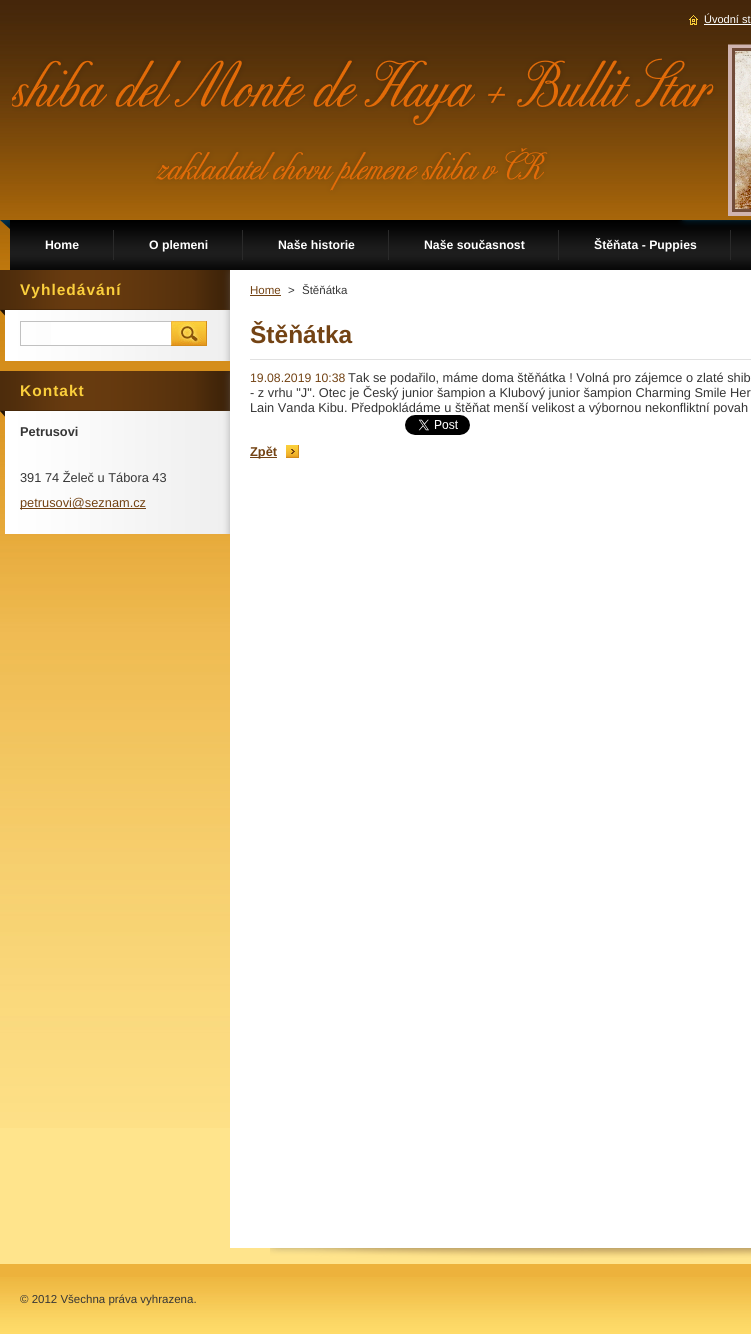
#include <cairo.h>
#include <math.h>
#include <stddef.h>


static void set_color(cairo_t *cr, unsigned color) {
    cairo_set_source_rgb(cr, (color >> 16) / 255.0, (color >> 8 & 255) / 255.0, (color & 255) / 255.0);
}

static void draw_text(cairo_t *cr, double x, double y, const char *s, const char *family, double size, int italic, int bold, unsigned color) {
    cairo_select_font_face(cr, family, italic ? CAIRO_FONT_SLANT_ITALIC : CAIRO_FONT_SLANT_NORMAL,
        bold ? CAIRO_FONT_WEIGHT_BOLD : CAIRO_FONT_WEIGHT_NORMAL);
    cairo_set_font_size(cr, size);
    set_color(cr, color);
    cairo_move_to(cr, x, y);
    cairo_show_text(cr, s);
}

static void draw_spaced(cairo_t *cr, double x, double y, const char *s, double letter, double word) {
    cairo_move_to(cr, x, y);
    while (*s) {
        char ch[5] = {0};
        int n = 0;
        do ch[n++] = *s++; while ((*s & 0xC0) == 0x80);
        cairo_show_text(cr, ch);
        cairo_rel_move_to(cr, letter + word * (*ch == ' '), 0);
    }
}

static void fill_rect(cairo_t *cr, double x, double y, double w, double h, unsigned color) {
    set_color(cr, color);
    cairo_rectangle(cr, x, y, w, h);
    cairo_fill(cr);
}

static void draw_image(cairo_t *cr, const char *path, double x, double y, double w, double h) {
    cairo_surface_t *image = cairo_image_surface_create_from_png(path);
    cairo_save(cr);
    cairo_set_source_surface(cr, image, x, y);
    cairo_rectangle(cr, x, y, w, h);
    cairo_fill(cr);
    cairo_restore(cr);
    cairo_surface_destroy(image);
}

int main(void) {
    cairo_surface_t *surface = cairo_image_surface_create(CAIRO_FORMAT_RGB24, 751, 1334);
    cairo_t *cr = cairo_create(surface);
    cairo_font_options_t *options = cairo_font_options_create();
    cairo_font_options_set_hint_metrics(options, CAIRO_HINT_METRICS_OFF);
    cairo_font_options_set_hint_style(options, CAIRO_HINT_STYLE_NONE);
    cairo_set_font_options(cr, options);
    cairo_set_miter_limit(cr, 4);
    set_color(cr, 0xFFE48C);
    cairo_paint(cr);
    draw_image(cr, "assets/img1.png", 0, 0, 751, 1128);
    draw_image(cr, "assets/img2.png", 689, 15, 9, 10);
    draw_text(cr, 704, 23, "Úvodní str", "Liberation Sans", 11, 0, 0, 0xFFFFFF);
    fill_rect(cr, 704, 24, 47, 1, 0xFFFFFF);
    draw_image(cr, "assets/img3.png", 12, 44, 739, 172);
    draw_image(cr, "assets/img4.png", 0, 220, 751, 50);
    fill_rect(cr, 113, 230, 1, 30, 0x2A2A2A);
    draw_text(cr, 45, 249, "Home", "Liberation Sans", 12.25, 0, 1, 0xFFFFFF);
    fill_rect(cr, 242, 230, 1, 30, 0x2A2A2A);
    draw_text(cr, 149, 249, "O plemeni", "Liberation Sans", 12.25, 0, 1, 0xFFFFFF);
    fill_rect(cr, 388, 230, 1, 30, 0x2A2A2A);
    draw_text(cr, 278, 249, "Naše historie", "Liberation Sans", 12.25, 0, 1, 0xFFFFFF);
    fill_rect(cr, 558, 230, 1, 30, 0x2A2A2A);
    draw_text(cr, 424, 249, "Naše současnost", "Liberation Sans", 12.25, 0, 1, 0xFFFFFF);
    fill_rect(cr, 730, 230, 1, 30, 0x2A2A2A);
    draw_text(cr, 594, 249, "Štěňata - Puppies", "Liberation Sans", 12.25, 0, 1, 0xFFFFFF);
    draw_image(cr, "assets/img5.png", 5, 316, 225, 45);
    draw_image(cr, "assets/img6.png", 0, 270, 230, 46);
    cairo_set_font_size(cr, 15.5);
    set_color(cr, 0xFBCF3C);
    draw_spaced(cr, 20, 295, "Vyhledávání", 1, 0);
    fill_rect(cr, 51, 322, 120, 23, 0xFFFFFF);
    cairo_rectangle(cr, 20.5, 321.5, 151, 24);
    set_color(cr, 0xC1C1C1);
    cairo_set_line_width(cr, 1);
    cairo_stroke(cr);
    draw_image(cr, "assets/img7.png", 171, 321, 36, 25);
    draw_image(cr, "assets/img8.png", 5, 417, 225, 117);
    draw_image(cr, "assets/img9.png", 0, 371, 230, 46);
    set_color(cr, 0xFBCF3C);
    draw_spaced(cr, 20, 396, "Kontakt", 1, 0);
    draw_text(cr, 20, 436, "Petrusovi", "Liberation Sans", 12.8, 0, 1, 0x363636);
    draw_text(cr, 20, 482, "391 74 Želeč u Tábora 43", "Liberation Sans", 12.8, 0, 0, 0x363636);
    fill_rect(cr, 20, 508, 49, 1, 0x734314);
    draw_text(cr, 20, 507, "petrusov", "Liberation Sans", 12.8, 0, 0, 0x734314);
    fill_rect(cr, 69, 508, 77, 1, 0x734314);
    draw_text(cr, 69, 507, "i@seznam.cz", "Liberation Sans", 12.8, 0, 0, 0x734314);
    draw_image(cr, "assets/img10.png", 270, 1248, 481, 10);
    fill_rect(cr, 230, 270, 521, 978, 0xFFFFFF);
    draw_text(cr, 250, 294, "Home", "Liberation Sans", 11.5, 0, 0, 0x734314);
    fill_rect(cr, 250, 295, 31, 1, 0x734314);
    draw_text(cr, 288, 294, ">", "Liberation Sans", 11.5, 0, 0, 0x363636);
    draw_text(cr, 302, 294, "Štěňátka", "Liberation Sans", 11.5, 0, 0, 0x363636);
    fill_rect(cr, 250, 359, 501, 1, 0xE1E1E1);
    draw_text(cr, 250, 343, "Štěňátka", "Liberation Sans", 24.5, 0, 1, 0x734314);
    draw_text(cr, 250, 382, "19.08.2019 10:38", "Liberation Sans", 12.25, 0, 0, 0x734314);
    draw_text(cr, 348, 382, "Tak se podařilo, máme doma štěňátka ! Volná pro zájemce o zlaté shib", "Liberation Sans", 12.8, 0, 0, 0x363636);
    draw_text(cr, 250, 397, "- z vrhu \"J\". Otec je Český junior šampion a Klubový junior šampion Charming Smile Her", "Liberation Sans", 12.8, 0, 0, 0x363636);
    draw_text(cr, 250, 412, "Lain Vanda Kibu. Předpokládáme u štěňat menší velikost a výbornou nekonfliktní povah", "Liberation Sans", 12.8, 0, 0, 0x363636);
    draw_image(cr, "assets/img11.png", 405, 415, 65, 20);
    draw_image(cr, "assets/img12.png", 286, 445, 13, 13);
    fill_rect(cr, 250, 457, 27, 1, 0x734314);
    draw_text(cr, 250, 456, "Zpět", "Liberation Sans", 12.8, 0, 1, 0x734314);
    fill_rect(cr, 0, 1264, 751, 13, 0xEDB23C);
    draw_image(cr, "assets/img13.png", 0, 1277, 751, 57);
    draw_text(cr, 20, 1303, "© 2012 Všechna práva vyhrazena.", "Liberation Sans", 11.5, 0, 0, 0x363636);
    cairo_surface_write_to_png(surface, "output.png");
    cairo_font_options_destroy(options);
    cairo_destroy(cr);
    cairo_surface_destroy(surface);
    return 0;
}
